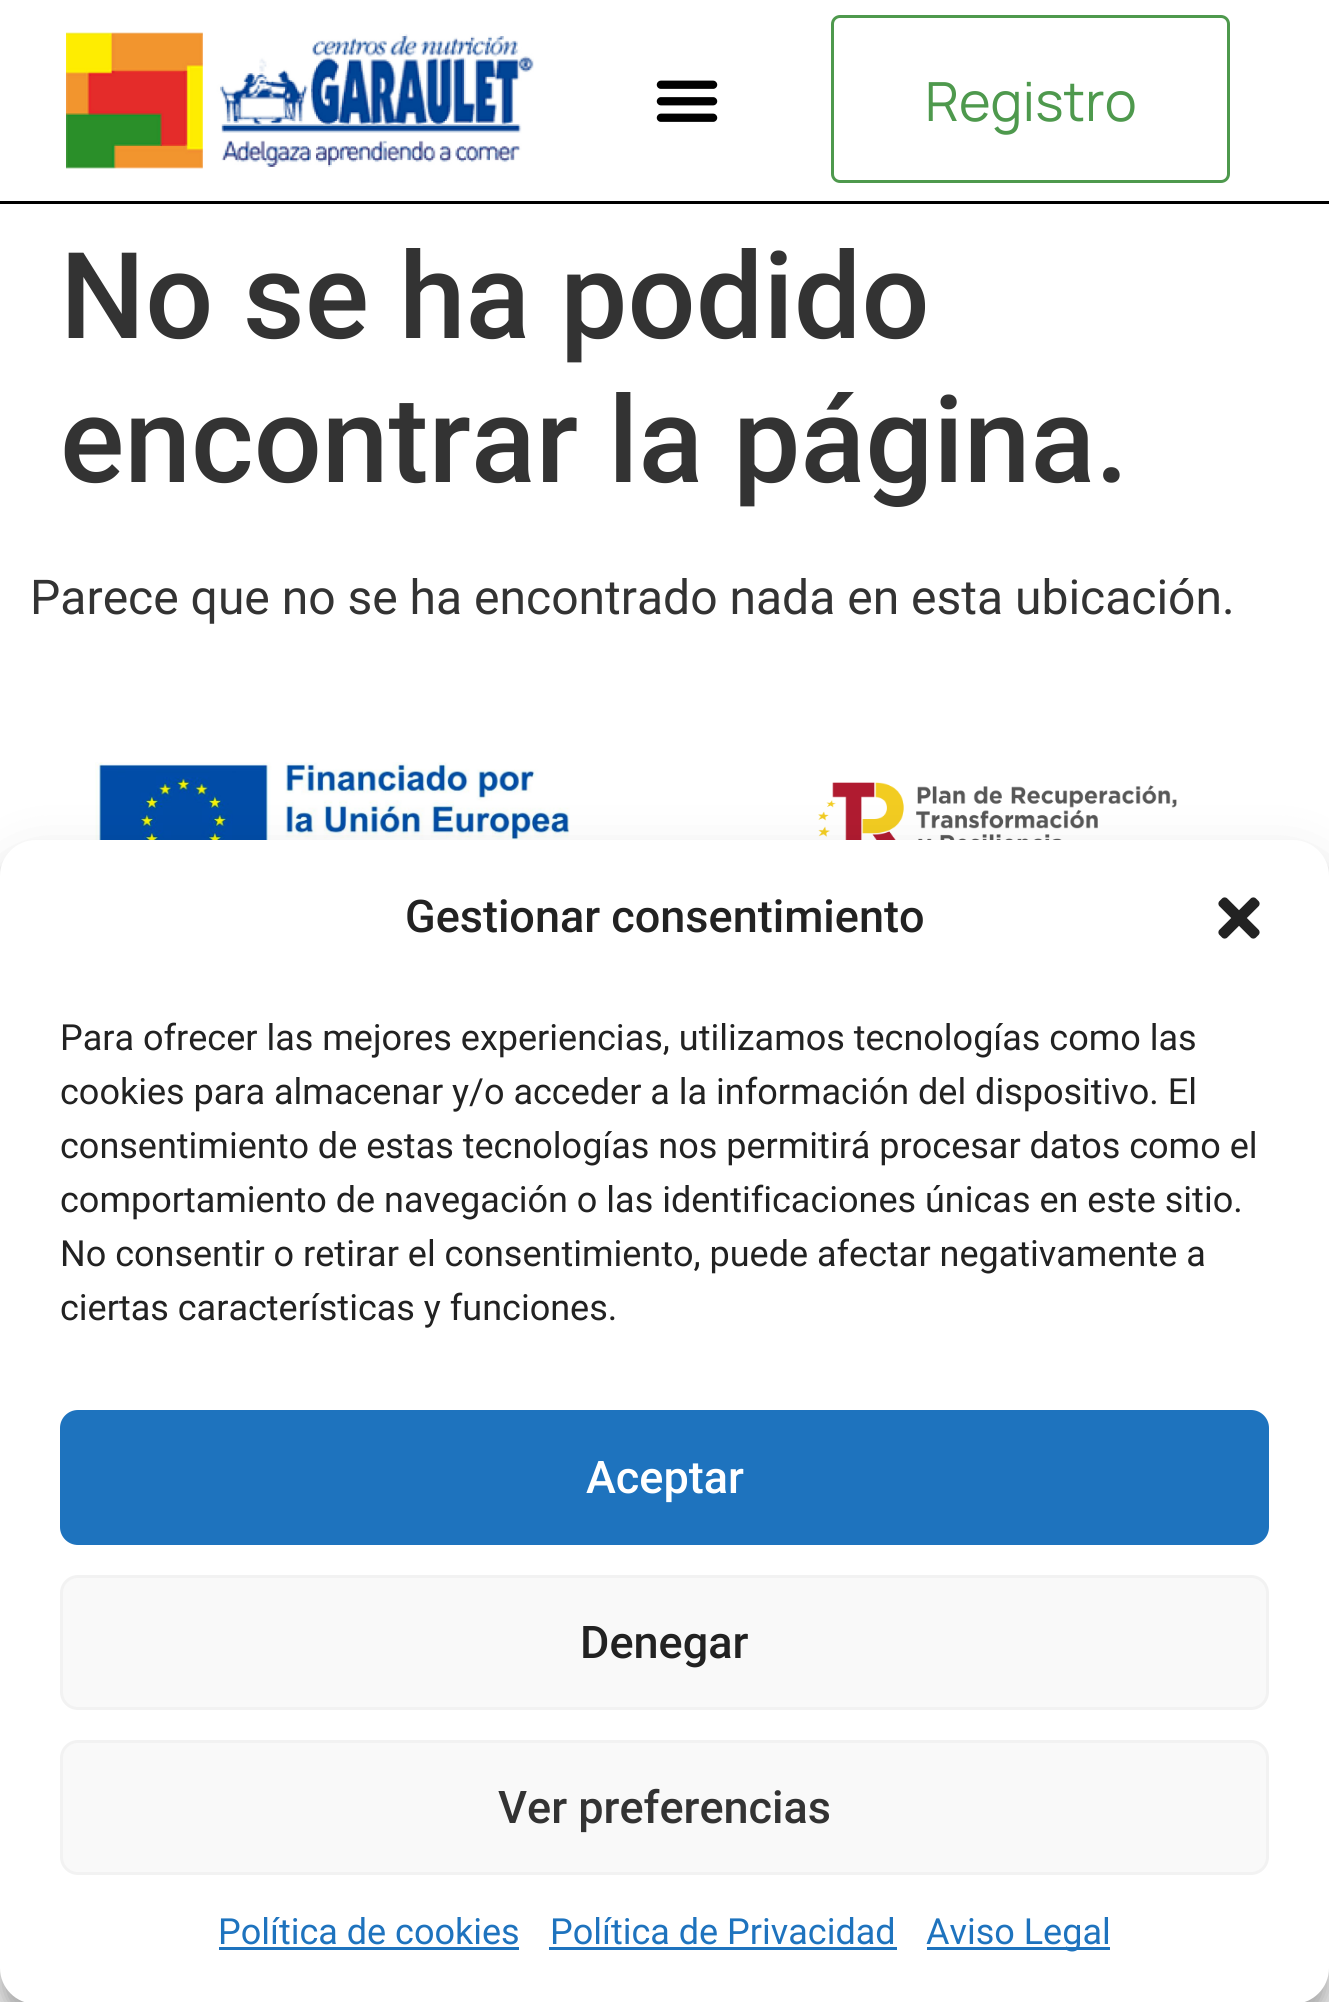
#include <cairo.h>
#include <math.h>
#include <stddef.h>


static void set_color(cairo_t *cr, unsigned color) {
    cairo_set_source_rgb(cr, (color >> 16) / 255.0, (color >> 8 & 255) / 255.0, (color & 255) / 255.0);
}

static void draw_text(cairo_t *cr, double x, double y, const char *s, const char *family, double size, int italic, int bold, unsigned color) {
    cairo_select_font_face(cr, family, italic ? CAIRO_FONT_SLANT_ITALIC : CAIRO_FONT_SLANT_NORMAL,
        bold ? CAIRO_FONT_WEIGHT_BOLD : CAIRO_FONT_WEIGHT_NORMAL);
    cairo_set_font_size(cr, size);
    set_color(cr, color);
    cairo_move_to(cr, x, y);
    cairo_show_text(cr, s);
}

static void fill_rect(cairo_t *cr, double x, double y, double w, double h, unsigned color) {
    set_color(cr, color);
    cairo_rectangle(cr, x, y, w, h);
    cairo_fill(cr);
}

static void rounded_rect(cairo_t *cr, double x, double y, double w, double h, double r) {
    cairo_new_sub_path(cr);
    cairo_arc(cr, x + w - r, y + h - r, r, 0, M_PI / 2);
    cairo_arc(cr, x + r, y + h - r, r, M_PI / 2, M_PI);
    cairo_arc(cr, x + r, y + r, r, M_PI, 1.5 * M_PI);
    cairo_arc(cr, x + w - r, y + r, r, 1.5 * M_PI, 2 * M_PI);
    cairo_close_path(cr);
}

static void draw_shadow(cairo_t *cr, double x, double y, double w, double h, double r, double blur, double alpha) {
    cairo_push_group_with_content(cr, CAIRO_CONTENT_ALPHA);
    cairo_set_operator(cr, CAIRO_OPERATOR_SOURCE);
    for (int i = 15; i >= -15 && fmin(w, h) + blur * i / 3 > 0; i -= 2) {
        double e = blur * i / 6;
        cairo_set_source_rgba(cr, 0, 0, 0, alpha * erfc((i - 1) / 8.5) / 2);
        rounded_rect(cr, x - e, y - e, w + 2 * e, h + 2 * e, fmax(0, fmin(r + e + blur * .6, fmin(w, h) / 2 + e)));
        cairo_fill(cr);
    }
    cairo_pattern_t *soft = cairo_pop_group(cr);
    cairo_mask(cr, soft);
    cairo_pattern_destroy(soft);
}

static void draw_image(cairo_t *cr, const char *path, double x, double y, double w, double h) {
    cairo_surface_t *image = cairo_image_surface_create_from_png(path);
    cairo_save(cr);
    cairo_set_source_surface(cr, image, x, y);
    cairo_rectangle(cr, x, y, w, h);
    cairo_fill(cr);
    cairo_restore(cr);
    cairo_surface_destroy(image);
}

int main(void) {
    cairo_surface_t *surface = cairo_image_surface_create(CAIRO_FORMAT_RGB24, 1329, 2002);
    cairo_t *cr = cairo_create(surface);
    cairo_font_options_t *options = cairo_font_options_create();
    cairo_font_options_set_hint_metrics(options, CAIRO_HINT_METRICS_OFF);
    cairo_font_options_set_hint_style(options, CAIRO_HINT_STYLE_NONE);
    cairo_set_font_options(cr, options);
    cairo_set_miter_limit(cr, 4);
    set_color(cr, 0xFFFFFF);
    cairo_paint(cr);
    fill_rect(cr, 0, 201, 1329, 3, 0x000000);
    draw_image(cr, "assets/img1.png", 66, 32, 468, 137);
    draw_image(cr, "assets/img2.png", 656, 80, 62, 42);
    rounded_rect(cr, 832.5, 16.5, 396, 165, 7.5);
    set_color(cr, 0x4E994D);
    cairo_set_line_width(cr, 3);
    cairo_stroke(cr);
    draw_text(cr, 925, 121, "Registro", "Manrope", 54, 0, 0, 0x4E994D);
    draw_text(cr, 60, 338, "No se ha podido", "Roboto Medium", 120, 0, 0, 0x333333);
    draw_text(cr, 60, 482, "encontrar la página.", "Roboto Medium", 120, 0, 0, 0x333333);
    draw_text(cr, 30, 614, "Parece que no se ha encontrado nada en esta ubicación.", "Roboto", 48, 0, 0, 0x333333);
    draw_image(cr, "assets/img3.png", 95, 762, 475, 78);
    draw_image(cr, "assets/img4.png", 818, 782, 359, 58);
    set_color(cr, 0x000000);
    draw_shadow(cr, 0, 858, 1329, 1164, 36, 9, 0.23);
    draw_shadow(cr, 0, 870, 1329, 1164, 36, 30, 0.19);
    set_color(cr, 0xFFFFFF);
    rounded_rect(cr, 0, 840, 1329, 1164, 36);
    cairo_fill(cr);
    draw_text(cr, 405, 932, "Gestionar consentimiento", "Roboto Medium", 45, 0, 0, 0x222222);
    draw_image(cr, "assets/img5.png", 1218, 897, 42, 42);
    draw_text(cr, 60, 1050, "Para ofrecer las mejores experiencias, utilizamos tecnologías como las", "Roboto", 36, 0, 0, 0x222222);
    draw_text(cr, 60, 1104, "cookies para almacenar y/o acceder a la información del dispositivo. El", "Roboto", 36, 0, 0, 0x222222);
    draw_text(cr, 60, 1158, "consentimiento de estas tecnologías nos permitirá procesar datos como el", "Roboto", 36, 0, 0, 0x222222);
    draw_text(cr, 60, 1212, "comportamiento de navegación o las identificaciones únicas en este sitio.", "Roboto", 36, 0, 0, 0x222222);
    draw_text(cr, 60, 1266, "No consentir o retirar el consentimiento, puede afectar negativamente a", "Roboto", 36, 0, 0, 0x222222);
    draw_text(cr, 60, 1320, "ciertas características y funciones.", "Roboto", 36, 0, 0, 0x222222);
    set_color(cr, 0x1E73BE);
    rounded_rect(cr, 61.5, 1411.5, 1206, 132, 16.5);
    cairo_fill_preserve(cr);
    cairo_stroke(cr);
    draw_text(cr, 586, 1493, "Aceptar", "Roboto Medium", 45, 0, 0, 0xFFFFFF);
    set_color(cr, 0xF9F9F9);
    rounded_rect(cr, 61.5, 1576.5, 1206, 132, 16.5);
    cairo_fill_preserve(cr);
    set_color(cr, 0xF2F2F2);
    cairo_stroke(cr);
    draw_text(cr, 580, 1658, "Denegar", "Roboto Medium", 45, 0, 0, 0x222222);
    set_color(cr, 0xF9F9F9);
    rounded_rect(cr, 61.5, 1741.5, 1206, 132, 16.5);
    cairo_fill_preserve(cr);
    set_color(cr, 0xF2F2F2);
    cairo_stroke(cr);
    draw_text(cr, 498, 1823, "Ver preferencias", "Roboto Medium", 45, 0, 0, 0x333333);
    draw_text(cr, 218, 1944, "Política de cookies", "Roboto", 36, 0, 0, 0x1E73BE);
    fill_rect(cr, 219, 1947, 300, 3, 0x1E73BE);
    draw_text(cr, 550, 1944, "Política de Privacidad", "Roboto", 36, 0, 0, 0x1E73BE);
    fill_rect(cr, 549, 1947, 348, 3, 0x1E73BE);
    fill_rect(cr, 927, 1947, 183, 3, 0x1E73BE);
    draw_text(cr, 926, 1944, "Aviso Legal", "Roboto", 36, 0, 0, 0x1E73BE);
    cairo_surface_write_to_png(surface, "output.png");
    cairo_font_options_destroy(options);
    cairo_destroy(cr);
    cairo_surface_destroy(surface);
    return 0;
}
